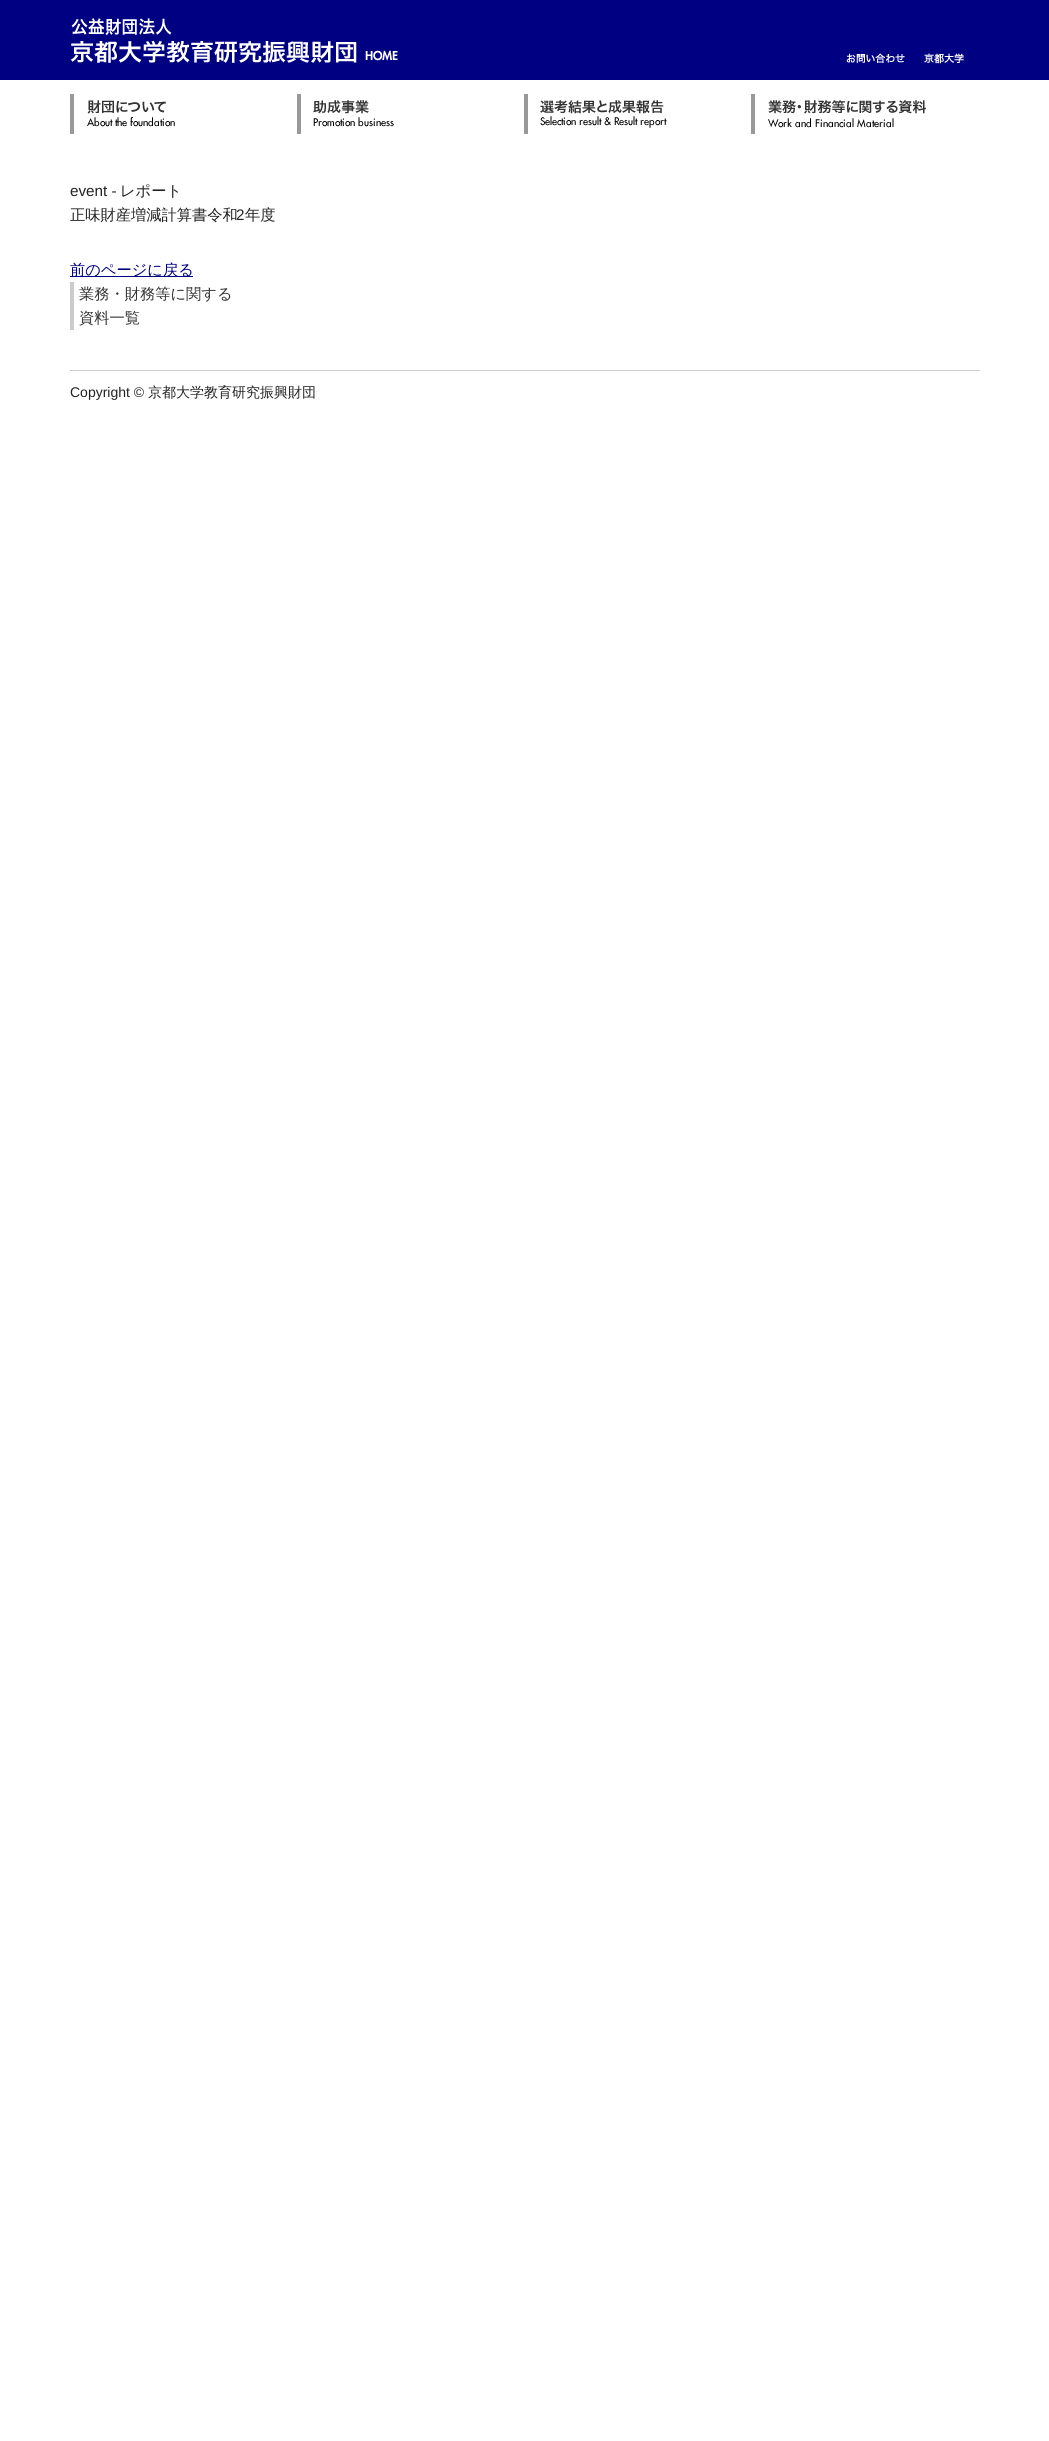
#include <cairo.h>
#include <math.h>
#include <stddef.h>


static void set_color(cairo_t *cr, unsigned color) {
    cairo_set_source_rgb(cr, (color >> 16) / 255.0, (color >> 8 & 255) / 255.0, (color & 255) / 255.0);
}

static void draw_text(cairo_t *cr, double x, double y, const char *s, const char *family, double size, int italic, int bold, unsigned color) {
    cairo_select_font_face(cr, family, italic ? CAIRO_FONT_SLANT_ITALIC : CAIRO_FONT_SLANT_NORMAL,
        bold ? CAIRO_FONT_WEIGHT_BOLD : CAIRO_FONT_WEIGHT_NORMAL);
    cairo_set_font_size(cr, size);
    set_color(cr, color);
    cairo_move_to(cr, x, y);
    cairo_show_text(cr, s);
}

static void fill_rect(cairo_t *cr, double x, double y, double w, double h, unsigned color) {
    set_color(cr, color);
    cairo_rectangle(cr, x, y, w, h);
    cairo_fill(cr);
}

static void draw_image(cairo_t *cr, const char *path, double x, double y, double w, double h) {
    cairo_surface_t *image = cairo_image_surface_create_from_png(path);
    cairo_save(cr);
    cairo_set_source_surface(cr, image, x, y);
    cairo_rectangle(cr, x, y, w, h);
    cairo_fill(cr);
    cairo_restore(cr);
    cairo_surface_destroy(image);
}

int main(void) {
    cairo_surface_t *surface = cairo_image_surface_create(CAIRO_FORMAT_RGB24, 1049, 2441);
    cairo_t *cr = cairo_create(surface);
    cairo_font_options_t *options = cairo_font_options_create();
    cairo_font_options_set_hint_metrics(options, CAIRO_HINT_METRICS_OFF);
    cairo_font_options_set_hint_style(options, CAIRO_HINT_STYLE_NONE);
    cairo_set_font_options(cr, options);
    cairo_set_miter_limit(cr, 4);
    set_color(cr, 0xFFFFFF);
    cairo_paint(cr);
    fill_rect(cr, 0, 0, 1049, 80, 0x000083);
    draw_image(cr, "assets/img1.png", 70, 18, 328, 45);
    draw_image(cr, "assets/img2.png", 846, 53, 59, 10);
    draw_image(cr, "assets/img3.png", 924, 53, 40, 11);
    draw_image(cr, "assets/img4.png", 70, 94, 105, 40);
    draw_image(cr, "assets/img5.png", 297, 94, 97, 40);
    draw_image(cr, "assets/img6.png", 524, 94, 143, 40);
    draw_image(cr, "assets/img7.png", 751, 94, 175, 40);
    draw_text(cr, 70, 196, "event -", "Liberation Sans", 15.25, 0, 0, 0x222222);
    draw_text(cr, 120, 196, "レポート", "WenQuanYi Zen Hei Medium", 15.25, 0, 0, 0x222222);
    draw_text(cr, 70, 220, "正味財産増減計算書令和", "WenQuanYi Zen Hei Medium", 15.25, 0, 0, 0x222222);
    draw_text(cr, 236, 220, "2", "Liberation Sans", 15.25, 0, 0, 0x222222);
    draw_text(cr, 245, 220, "年度", "WenQuanYi Zen Hei Medium", 15.25, 0, 0, 0x222222);
    fill_rect(cr, 70, 276, 123, 1, 0x000083);
    draw_text(cr, 70, 275, "前のページに戻る", "WenQuanYi Zen Hei Medium", 15.25, 0, 0, 0x000083);
    fill_rect(cr, 70, 282, 4, 48, 0xCCCCCC);
    draw_text(cr, 79, 299, "業務・財務等に関する", "WenQuanYi Zen Hei Medium", 15.25, 0, 0, 0x333333);
    draw_text(cr, 79, 323, "資料一覧", "WenQuanYi Zen Hei Medium", 15.25, 0, 0, 0x333333);
    fill_rect(cr, 70, 370, 910, 1, 0xCCCCCC);
    draw_text(cr, 70, 397, "Copyright ©", "Liberation Sans", 14, 0, 0, 0x222222);
    draw_text(cr, 148, 397, "京都大学教育研究振興財団", "WenQuanYi Zen Hei Medium", 14, 0, 0, 0x222222);
    cairo_surface_write_to_png(surface, "output.png");
    cairo_font_options_destroy(options);
    cairo_destroy(cr);
    cairo_surface_destroy(surface);
    return 0;
}
